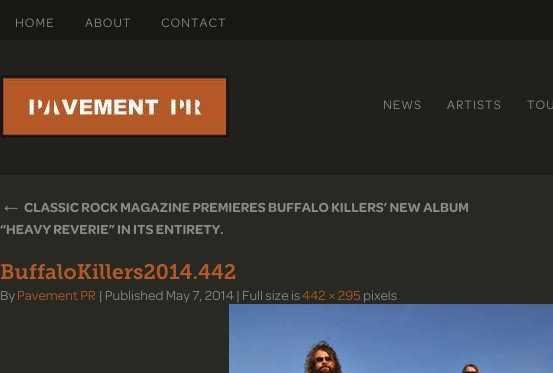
#include <cairo.h>
#include <math.h>
#include <stddef.h>


static void set_color(cairo_t *cr, unsigned color) {
    cairo_set_source_rgb(cr, (color >> 16) / 255.0, (color >> 8 & 255) / 255.0, (color & 255) / 255.0);
}

static void draw_text(cairo_t *cr, double x, double y, const char *s, const char *family, double size, int italic, int bold, unsigned color) {
    cairo_select_font_face(cr, family, italic ? CAIRO_FONT_SLANT_ITALIC : CAIRO_FONT_SLANT_NORMAL,
        bold ? CAIRO_FONT_WEIGHT_BOLD : CAIRO_FONT_WEIGHT_NORMAL);
    cairo_set_font_size(cr, size);
    set_color(cr, color);
    cairo_move_to(cr, x, y);
    cairo_show_text(cr, s);
}

static void draw_spaced(cairo_t *cr, double x, double y, const char *s, double letter, double word) {
    cairo_move_to(cr, x, y);
    while (*s) {
        char ch[5] = {0};
        int n = 0;
        do ch[n++] = *s++; while ((*s & 0xC0) == 0x80);
        cairo_show_text(cr, ch);
        cairo_rel_move_to(cr, letter + word * (*ch == ' '), 0);
    }
}

static void fill_rect(cairo_t *cr, double x, double y, double w, double h, unsigned color) {
    set_color(cr, color);
    cairo_rectangle(cr, x, y, w, h);
    cairo_fill(cr);
}

static void draw_image(cairo_t *cr, const char *path, double x, double y, double w, double h) {
    cairo_surface_t *image = cairo_image_surface_create_from_png(path);
    cairo_save(cr);
    cairo_set_source_surface(cr, image, x, y);
    cairo_rectangle(cr, x, y, w, h);
    cairo_fill(cr);
    cairo_restore(cr);
    cairo_surface_destroy(image);
}

int main(void) {
    cairo_surface_t *surface = cairo_image_surface_create(CAIRO_FORMAT_RGB24, 553, 373);
    cairo_t *cr = cairo_create(surface);
    cairo_font_options_t *options = cairo_font_options_create();
    cairo_font_options_set_hint_metrics(options, CAIRO_HINT_METRICS_OFF);
    cairo_font_options_set_hint_style(options, CAIRO_HINT_STYLE_NONE);
    cairo_set_font_options(cr, options);
    cairo_set_miter_limit(cr, 4);
    set_color(cr, 0x282923);
    cairo_paint(cr);
    fill_rect(cr, 0, 0, 553, 40, 0x171814);
    cairo_select_font_face(cr, "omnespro", CAIRO_FONT_SLANT_NORMAL, CAIRO_FONT_WEIGHT_NORMAL);
    cairo_set_font_size(cr, 13);
    set_color(cr, 0x8A8B89);
    draw_spaced(cr, 15, 27, "HOME", 1, 0);
    draw_spaced(cr, 85, 27, "ABOUT", 1, 0);
    draw_spaced(cr, 161, 27, "CONTACT", 1, 0);
    fill_rect(cr, 0, 40, 553, 133, 0x20211C);
    fill_rect(cr, 0, 173, 553, 1, 0x171814);
    draw_image(cr, "assets/img1.png", 0, 75, 229, 63);
    set_color(cr, 0x8A8B89);
    draw_spaced(cr, 383, 109, "NEWS", 1, 0);
    draw_spaced(cr, 447, 109, "ARTISTS", 1, 0);
    draw_spaced(cr, 527, 109, "TOU", 1, 0);
    draw_text(cr, 0, 212, "←", "Liberation Serif", 22, 0, 0, 0x8A8B89);
    draw_text(cr, 24, 212, "CLASSIC ROCK MAGAZINE PREMIERES BUFFALO KILLERS’ NEW ALBUM", "omnespro SemiBold", 14, 0, 0, 0x8A8B89);
    draw_text(cr, 0, 234, "“HEAVY REVERIE” IN ITS ENTIRETY.", "omnespro SemiBold", 14, 0, 0, 0x8A8B89);
    draw_text(cr, 0, 279, "BuffaloKillers2014.442", "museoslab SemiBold", 21, 0, 0, 0xB45927);
    draw_text(cr, 0, 300, "By", "omnespro", 14, 0, 0, 0x8A8B89);
    draw_text(cr, 17, 300, "Pavement PR", "omnespro", 14, 0, 0, 0xB45927);
    draw_text(cr, 99, 300, "| Published May 7, 2014 | Full size is", "omnespro", 14, 0, 0, 0x8A8B89);
    draw_text(cr, 302, 300, "442 × 295", "omnespro", 14, 0, 0, 0xB45927);
    draw_text(cr, 363, 300, "pixels", "omnespro", 14, 0, 0, 0x8A8B89);
    draw_image(cr, "assets/img2.png", 229, 304, 324, 69);
    cairo_surface_write_to_png(surface, "output.png");
    cairo_font_options_destroy(options);
    cairo_destroy(cr);
    cairo_surface_destroy(surface);
    return 0;
}
